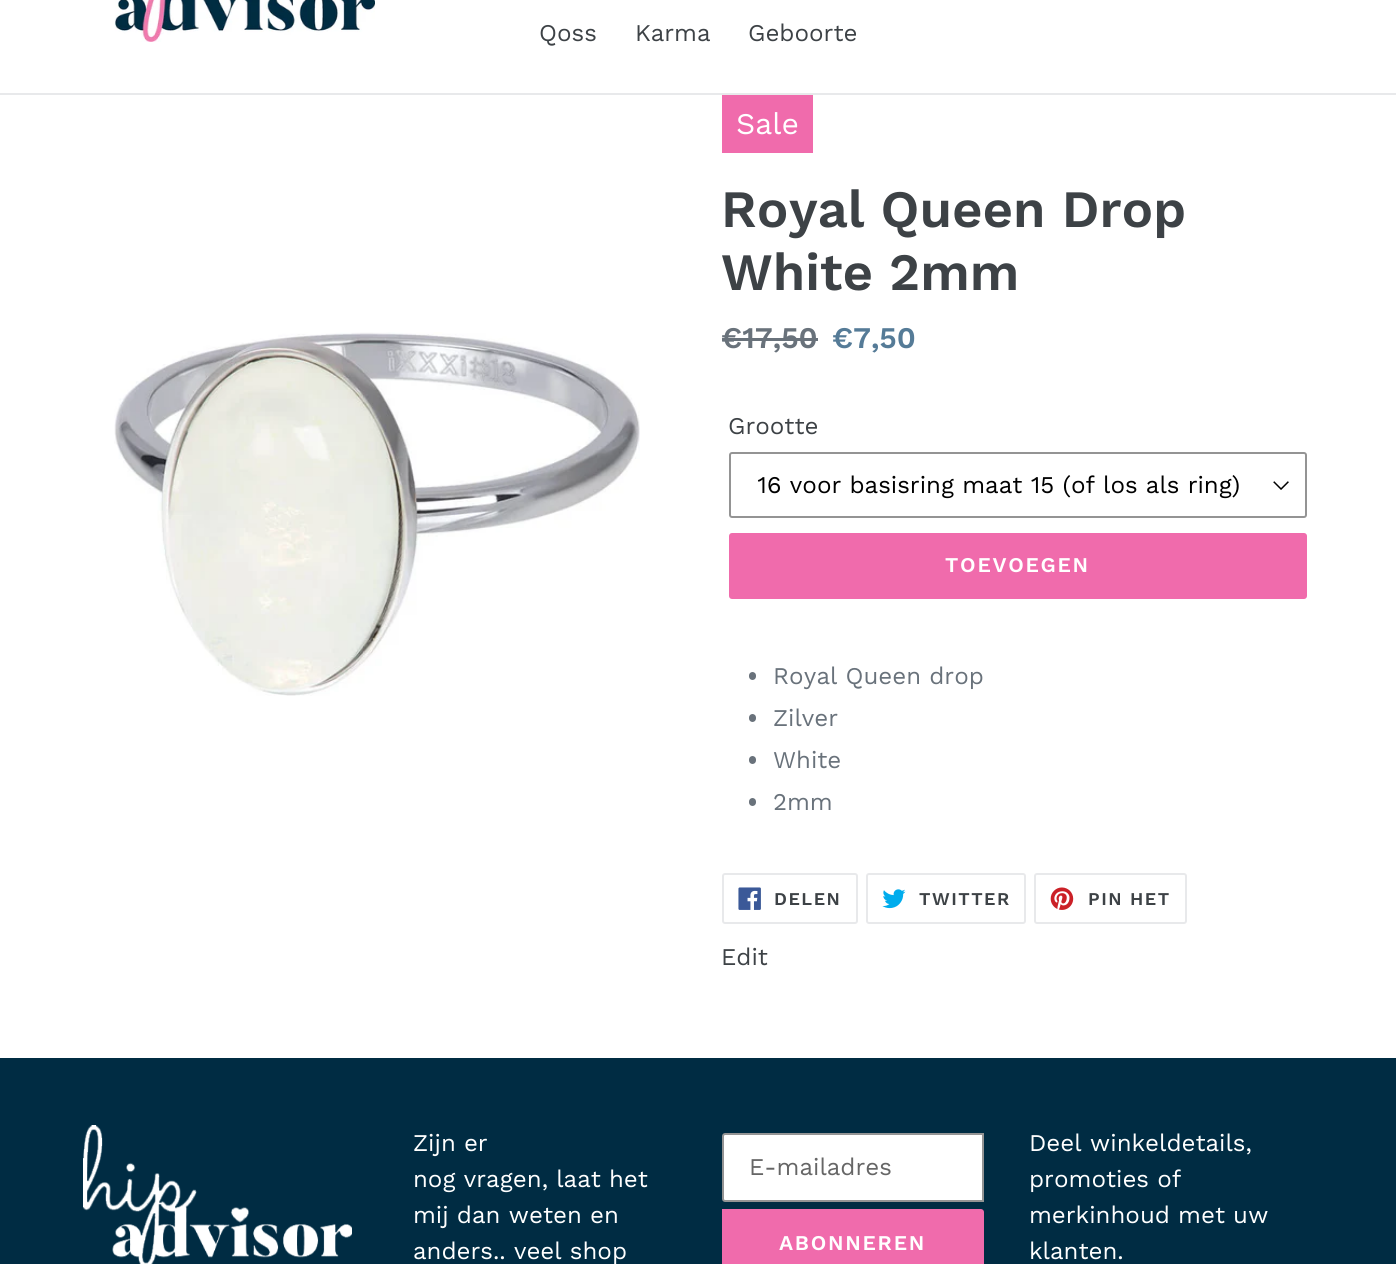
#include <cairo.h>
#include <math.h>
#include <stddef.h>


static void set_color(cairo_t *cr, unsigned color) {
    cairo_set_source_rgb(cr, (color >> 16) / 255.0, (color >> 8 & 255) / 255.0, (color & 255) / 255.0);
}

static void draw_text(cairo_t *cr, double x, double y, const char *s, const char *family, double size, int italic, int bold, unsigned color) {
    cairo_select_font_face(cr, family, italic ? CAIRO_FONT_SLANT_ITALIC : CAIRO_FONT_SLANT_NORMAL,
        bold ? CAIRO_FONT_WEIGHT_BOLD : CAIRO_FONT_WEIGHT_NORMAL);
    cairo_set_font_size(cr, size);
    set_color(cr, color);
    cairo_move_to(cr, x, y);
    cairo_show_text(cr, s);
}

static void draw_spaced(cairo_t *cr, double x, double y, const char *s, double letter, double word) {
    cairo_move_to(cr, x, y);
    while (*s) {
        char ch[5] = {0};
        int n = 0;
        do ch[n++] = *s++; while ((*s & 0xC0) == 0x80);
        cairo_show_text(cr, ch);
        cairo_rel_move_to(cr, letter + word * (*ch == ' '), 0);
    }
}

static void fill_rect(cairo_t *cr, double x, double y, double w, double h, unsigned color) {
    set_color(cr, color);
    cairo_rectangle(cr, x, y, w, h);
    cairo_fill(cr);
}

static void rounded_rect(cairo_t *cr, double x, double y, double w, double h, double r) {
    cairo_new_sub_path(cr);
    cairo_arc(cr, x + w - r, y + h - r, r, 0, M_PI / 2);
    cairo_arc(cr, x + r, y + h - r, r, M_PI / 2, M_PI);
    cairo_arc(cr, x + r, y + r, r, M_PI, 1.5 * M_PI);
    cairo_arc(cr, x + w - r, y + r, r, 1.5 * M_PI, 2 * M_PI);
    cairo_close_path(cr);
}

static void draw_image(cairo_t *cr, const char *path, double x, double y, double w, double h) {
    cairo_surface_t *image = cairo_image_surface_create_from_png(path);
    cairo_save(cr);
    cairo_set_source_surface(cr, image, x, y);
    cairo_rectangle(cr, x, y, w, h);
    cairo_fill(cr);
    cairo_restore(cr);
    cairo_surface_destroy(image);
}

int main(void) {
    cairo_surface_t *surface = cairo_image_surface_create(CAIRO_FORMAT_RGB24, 1396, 1264);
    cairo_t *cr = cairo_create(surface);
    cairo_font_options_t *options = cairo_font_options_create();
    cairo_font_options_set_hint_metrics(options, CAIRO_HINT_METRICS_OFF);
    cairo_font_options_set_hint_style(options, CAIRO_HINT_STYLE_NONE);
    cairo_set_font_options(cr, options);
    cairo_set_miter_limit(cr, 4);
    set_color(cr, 0xFFFFFF);
    cairo_paint(cr);
    fill_rect(cr, 0, 93, 1396, 2, 0xE8E9EB);
    draw_image(cr, "assets/img1.png", 114, 0, 261, 42);
    draw_text(cr, 539, 41, "Qoss", "Work Sans", 24, 0, 0, 0x3D4246);
    draw_text(cr, 635, 41, "Karma", "Work Sans", 24, 0, 0, 0x3D4246);
    draw_text(cr, 748, 41, "Geboorte", "Work Sans", 24, 0, 0, 0x3D4246);
    draw_image(cr, "assets/img2.png", 114, 332, 526, 364);
    fill_rect(cr, 722, 95, 91, 58, 0xF06BAC);
    draw_text(cr, 736, 134, "Sale", "Work Sans", 30, 0, 0, 0xFFFFFF);
    draw_text(cr, 721, 348, "€17,50", "Work Sans SemiBold", 30, 0, 0, 0x69727B);
    fill_rect(cr, 722, 338, 96, 3, 0x69727B);
    draw_text(cr, 832, 348, "€7,50", "Work Sans SemiBold", 30, 0, 0, 0x557B97);
    draw_text(cr, 721, 227, "Royal Queen Drop", "Work Sans SemiBold", 52.5, 0, 0, 0x3D4246);
    draw_text(cr, 721, 290, "White 2mm", "Work Sans SemiBold", 52.5, 0, 0, 0x3D4246);
    draw_text(cr, 728, 434, "Grootte", "Work Sans", 24, 0, 0, 0x3D4246);
    draw_image(cr, "assets/img3.png", 1273, 481, 16, 9);
    rounded_rect(cr, 730, 453, 576, 64, 2);
    set_color(cr, 0x949494);
    cairo_stroke(cr);
    draw_text(cr, 757, 493, "16 voor basisring maat 15 (of los als ring)", "Work Sans", 24, 0, 0, 0x000000);
    set_color(cr, 0xF06BAC);
    rounded_rect(cr, 729, 533, 578, 66, 3);
    cairo_fill(cr);
    cairo_select_font_face(cr, "Work Sans SemiBold", CAIRO_FONT_SLANT_NORMAL, CAIRO_FONT_WEIGHT_NORMAL);
    cairo_set_font_size(cr, 21);
    set_color(cr, 0xFFFFFF);
    draw_spaced(cr, 945, 572, "TOEVOEGEN", 1.75, 0);
    set_color(cr, 0x69727B);
    rounded_rect(cr, 749, 672, 7, 8, 3.5);
    cairo_fill(cr);
    draw_text(cr, 773, 684, "Royal Queen drop", "Work Sans", 24, 0, 0, 0x69727B);
    rounded_rect(cr, 749, 714, 7, 8, 3.5);
    cairo_fill(cr);
    draw_text(cr, 773, 726, "Zilver", "Work Sans", 24, 0, 0, 0x69727B);
    rounded_rect(cr, 749, 756, 7, 8, 3.5);
    cairo_fill(cr);
    draw_text(cr, 773, 768, "White", "Work Sans", 24, 0, 0, 0x69727B);
    rounded_rect(cr, 749, 798, 7, 8, 3.5);
    cairo_fill(cr);
    draw_text(cr, 773, 810, "2mm", "Work Sans", 24, 0, 0, 0x69727B);
    rounded_rect(cr, 723, 874, 134, 49, 2);
    set_color(cr, 0xE8E9EB);
    cairo_stroke(cr);
    draw_image(cr, "assets/img4.png", 738, 887, 23, 23);
    cairo_select_font_face(cr, "Work Sans SemiBold", CAIRO_FONT_SLANT_NORMAL, CAIRO_FONT_WEIGHT_NORMAL);
    cairo_set_font_size(cr, 18);
    set_color(cr, 0x3D4246);
    draw_spaced(cr, 774, 905, "DELEN", 1.5, 0);
    rounded_rect(cr, 867, 874, 158, 49, 2);
    set_color(cr, 0xE8E9EB);
    cairo_stroke(cr);
    draw_image(cr, "assets/img5.png", 882, 889, 24, 20);
    set_color(cr, 0x3D4246);
    draw_spaced(cr, 919, 905, "TWITTER", 1.5, 0);
    rounded_rect(cr, 1035, 874, 151, 49, 2);
    set_color(cr, 0xE8E9EB);
    cairo_stroke(cr);
    draw_image(cr, "assets/img6.png", 1050, 887, 24, 23);
    set_color(cr, 0x3D4246);
    draw_spaced(cr, 1088, 905, "PIN HET", 1.5, 0);
    draw_text(cr, 721, 965, "Edit", "Work Sans", 24, 0, 0, 0x3D4246);
    fill_rect(cr, 0, 1058, 1396, 206, 0x002C43);
    draw_image(cr, "assets/img7.png", 83, 1125, 269, 139);
    draw_text(cr, 413, 1151, "Zijn er", "Work Sans", 24, 0, 0, 0xFFFFFF);
    draw_text(cr, 413, 1187, "nog vragen, laat het", "Work Sans", 24, 0, 0, 0xFFFFFF);
    draw_text(cr, 413, 1223, "mij dan weten en", "Work Sans", 24, 0, 0, 0xFFFFFF);
    draw_text(cr, 413, 1259, "anders.. veel shop", "Work Sans", 24, 0, 0, 0xFFFFFF);
    cairo_new_path(cr);
    cairo_move_to(cr, 725, 1134);
    cairo_line_to(cr, 983, 1134);
    cairo_line_to(cr, 983, 1201);
    cairo_line_to(cr, 725, 1201);
    cairo_curve_to(cr, 724, 1201, 723, 1200, 723, 1199);
    cairo_line_to(cr, 723, 1136);
    cairo_curve_to(cr, 723, 1135, 724, 1134, 725, 1134);
    cairo_close_path(cr);
    cairo_fill_preserve(cr);
    set_color(cr, 0x949494);
    cairo_stroke(cr);
    draw_text(cr, 749, 1175, "E-mailadres", "Work Sans", 24, 0, 0, 0x666666);
    set_color(cr, 0xF06BAC);
    cairo_new_path(cr);
    cairo_move_to(cr, 722, 1209);
    cairo_line_to(cr, 981, 1209);
    cairo_curve_to(cr, 982.5, 1209, 984, 1210.5, 984, 1212);
    cairo_line_to(cr, 984, 1264);
    cairo_curve_to(cr, 984, 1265.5, 982.5, 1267, 981, 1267);
    cairo_line_to(cr, 722, 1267);
    cairo_close_path(cr);
    cairo_fill(cr);
    cairo_select_font_face(cr, "Work Sans SemiBold", CAIRO_FONT_SLANT_NORMAL, CAIRO_FONT_WEIGHT_NORMAL);
    cairo_set_font_size(cr, 21);
    set_color(cr, 0xFFFFFF);
    draw_spaced(cr, 779, 1250, "ABONNEREN", 1.75, 0);
    draw_text(cr, 1029, 1151, "Deel winkeldetails,", "Work Sans", 24, 0, 0, 0xFFFFFF);
    draw_text(cr, 1029, 1187, "promoties of", "Work Sans", 24, 0, 0, 0xFFFFFF);
    draw_text(cr, 1029, 1223, "merkinhoud met uw", "Work Sans", 24, 0, 0, 0xFFFFFF);
    draw_text(cr, 1029, 1259, "klanten.", "Work Sans", 24, 0, 0, 0xFFFFFF);
    cairo_surface_write_to_png(surface, "output.png");
    cairo_font_options_destroy(options);
    cairo_destroy(cr);
    cairo_surface_destroy(surface);
    return 0;
}
